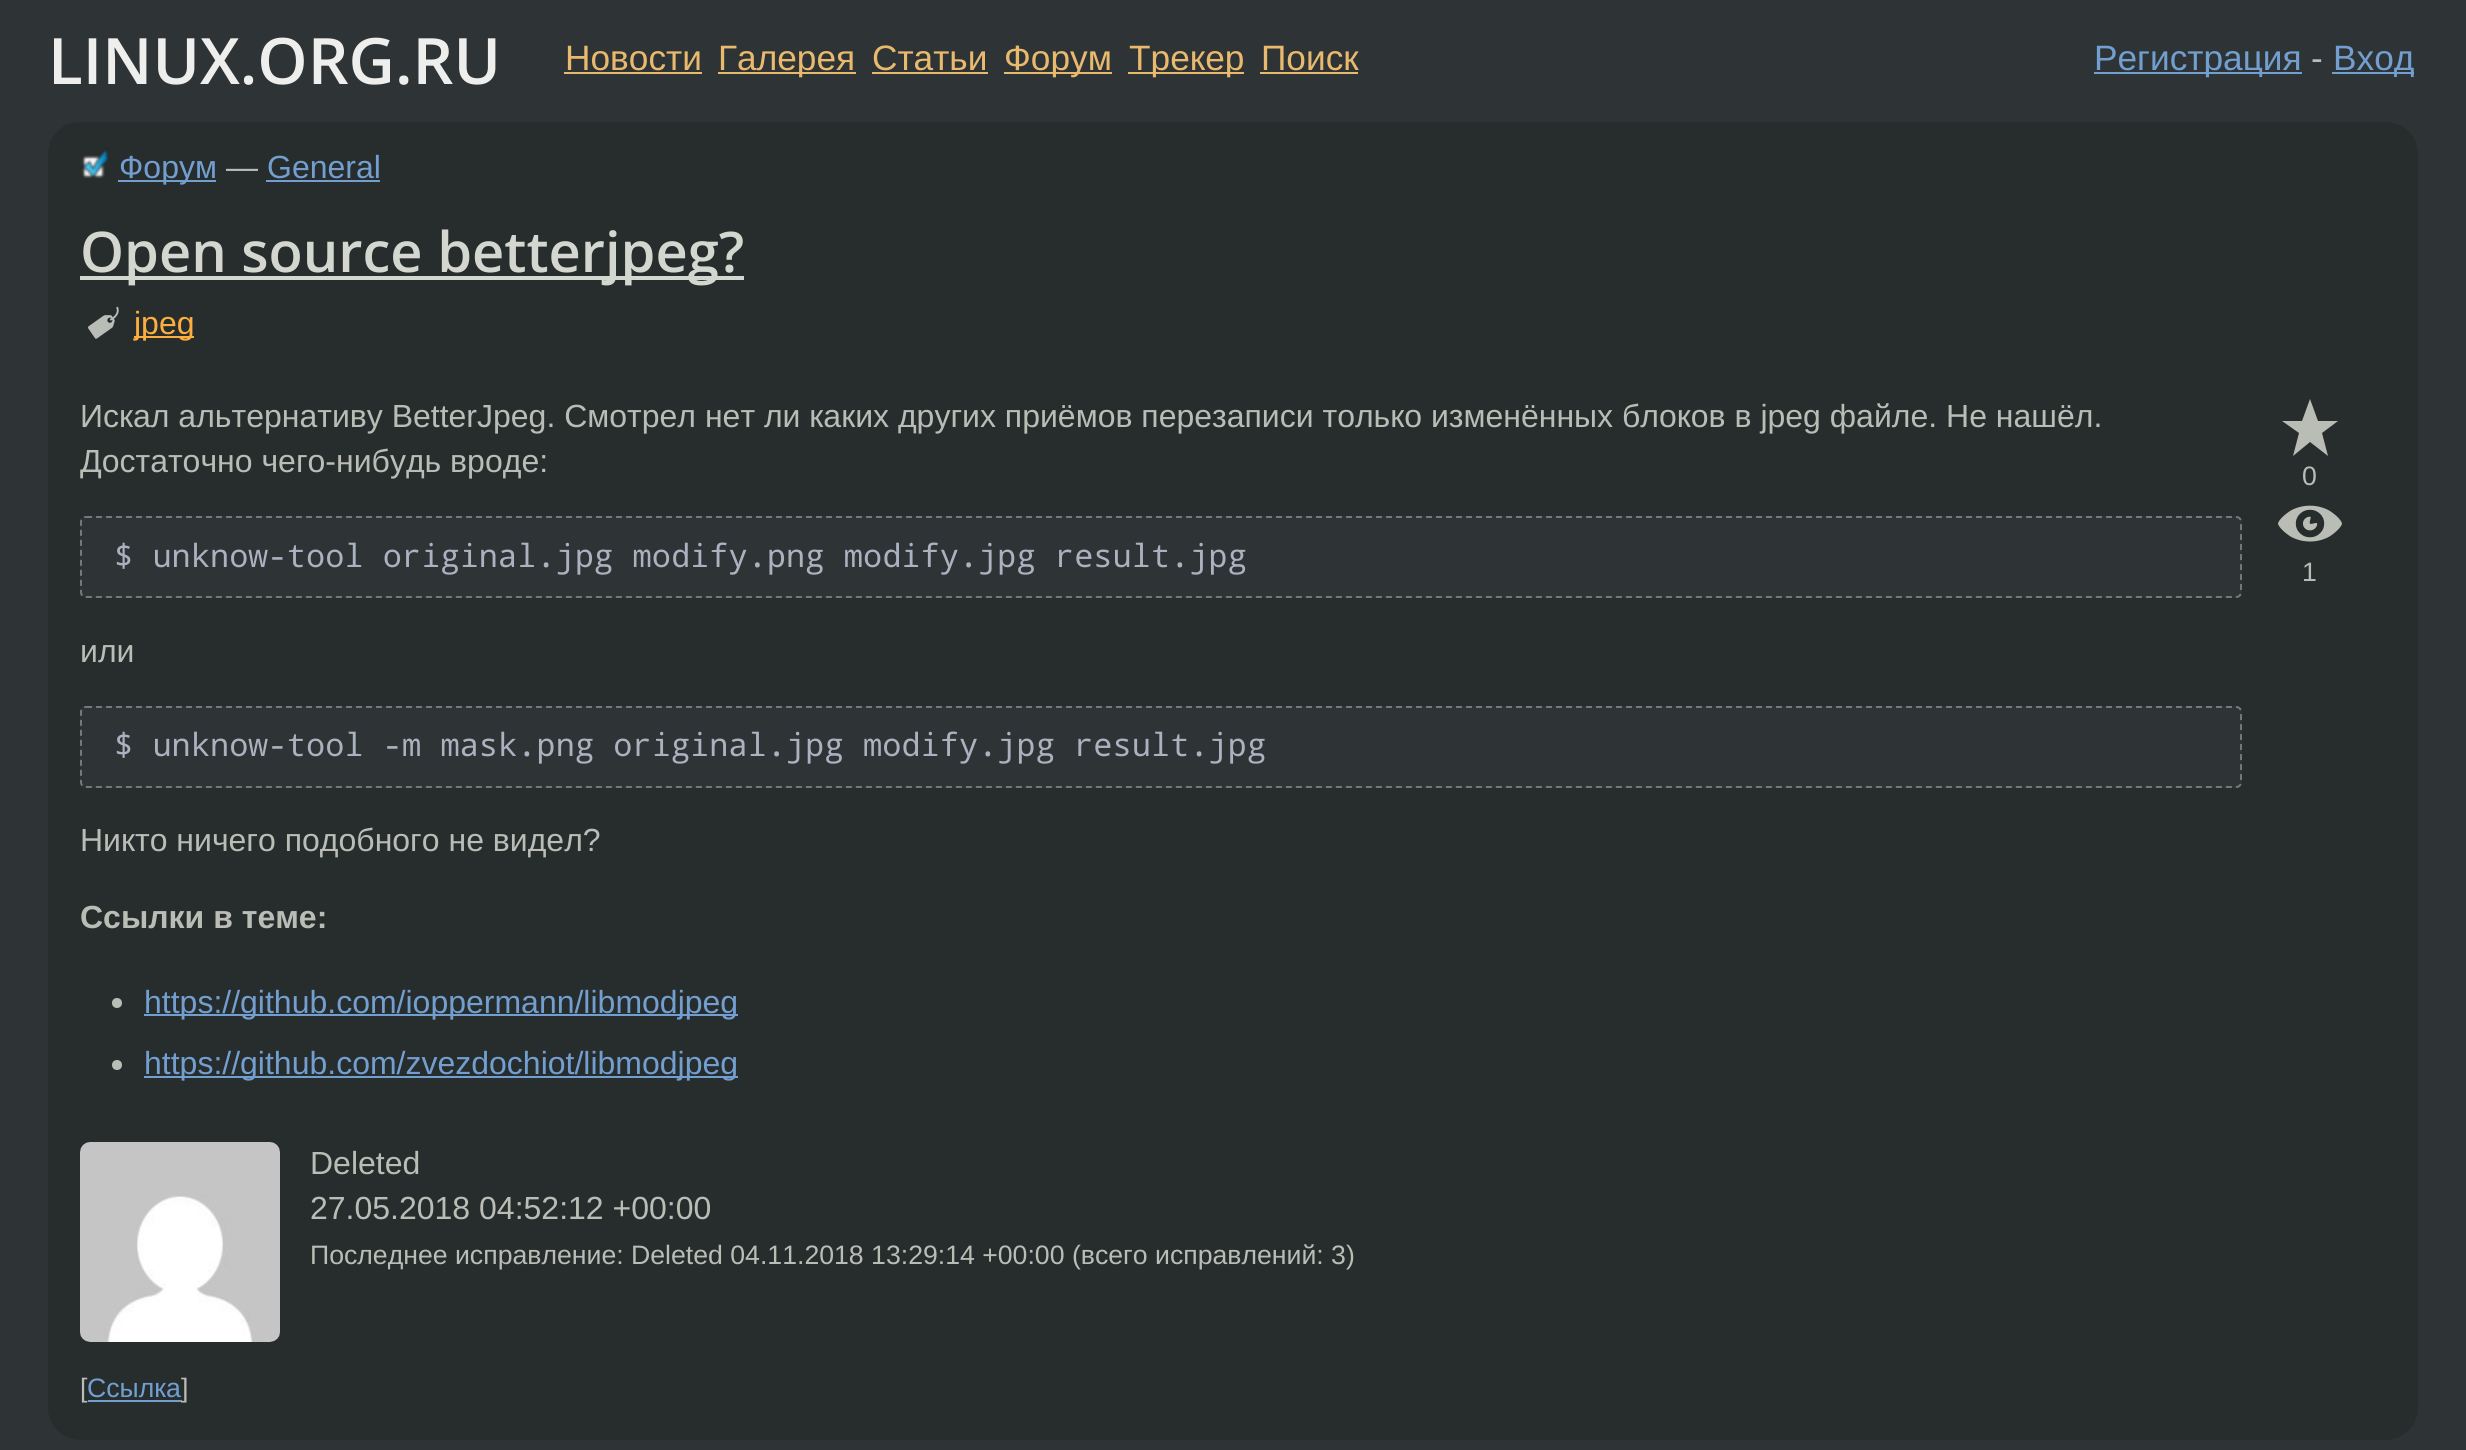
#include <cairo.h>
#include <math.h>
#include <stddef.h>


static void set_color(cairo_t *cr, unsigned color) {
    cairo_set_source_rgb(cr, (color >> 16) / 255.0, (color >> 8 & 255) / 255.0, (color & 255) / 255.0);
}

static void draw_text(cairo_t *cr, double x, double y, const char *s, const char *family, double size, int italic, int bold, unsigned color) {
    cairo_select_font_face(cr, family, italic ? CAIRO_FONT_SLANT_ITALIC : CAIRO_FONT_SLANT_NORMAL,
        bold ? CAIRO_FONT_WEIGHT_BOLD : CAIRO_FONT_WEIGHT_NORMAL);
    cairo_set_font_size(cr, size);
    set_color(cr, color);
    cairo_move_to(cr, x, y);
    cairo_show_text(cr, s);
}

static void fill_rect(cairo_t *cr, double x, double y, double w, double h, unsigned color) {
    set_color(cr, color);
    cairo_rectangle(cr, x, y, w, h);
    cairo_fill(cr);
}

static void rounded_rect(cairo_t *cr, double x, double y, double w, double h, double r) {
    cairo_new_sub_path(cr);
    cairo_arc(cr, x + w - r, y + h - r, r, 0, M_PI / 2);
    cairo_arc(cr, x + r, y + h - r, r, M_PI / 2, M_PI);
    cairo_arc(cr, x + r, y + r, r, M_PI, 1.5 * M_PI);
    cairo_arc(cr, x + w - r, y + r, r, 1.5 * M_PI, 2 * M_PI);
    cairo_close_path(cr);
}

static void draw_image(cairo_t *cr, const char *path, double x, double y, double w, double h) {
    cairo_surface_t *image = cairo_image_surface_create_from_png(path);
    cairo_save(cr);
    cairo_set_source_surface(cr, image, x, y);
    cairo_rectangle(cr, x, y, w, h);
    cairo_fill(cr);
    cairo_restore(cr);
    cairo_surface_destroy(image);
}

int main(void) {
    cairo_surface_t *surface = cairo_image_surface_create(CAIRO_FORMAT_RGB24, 2466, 1450);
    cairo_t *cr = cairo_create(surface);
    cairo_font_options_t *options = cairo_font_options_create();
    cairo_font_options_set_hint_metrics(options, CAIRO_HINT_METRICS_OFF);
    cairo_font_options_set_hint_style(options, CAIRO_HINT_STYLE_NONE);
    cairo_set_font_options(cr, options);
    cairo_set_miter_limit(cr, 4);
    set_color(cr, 0x2E3436);
    cairo_paint(cr);
    draw_text(cr, 48, 84, "LINUX.ORG.RU", "Open Sans SemiBold", 64, 0, 0, 0xEEEEEC);
    draw_text(cr, 565, 70, "Новости", "Liberation Sans", 35.25, 0, 0, 0xE9B96E);
    fill_rect(cr, 564, 72, 138, 2, 0xE9B96E);
    fill_rect(cr, 718, 72, 138, 2, 0xE9B96E);
    draw_text(cr, 718, 70, "Галерея", "Liberation Sans", 35.25, 0, 0, 0xE9B96E);
    draw_text(cr, 872, 70, "Статьи", "Liberation Sans", 35.25, 0, 0, 0xE9B96E);
    fill_rect(cr, 872, 72, 116, 2, 0xE9B96E);
    fill_rect(cr, 1004, 72, 108, 2, 0xE9B96E);
    draw_text(cr, 1004, 70, "Форум", "Liberation Sans", 35.25, 0, 0, 0xE9B96E);
    fill_rect(cr, 1128, 72, 116, 2, 0xE9B96E);
    draw_text(cr, 1129, 70, "Трекер", "Liberation Sans", 35.25, 0, 0, 0xE9B96E);
    draw_text(cr, 1261, 70, "Поиск", "Liberation Sans", 35.25, 0, 0, 0xE9B96E);
    fill_rect(cr, 1260, 72, 98, 2, 0xE9B96E);
    fill_rect(cr, 2094, 72, 208, 2, 0x729FCF);
    draw_text(cr, 2094, 70, "Регистрация", "Liberation Sans", 35.25, 0, 0, 0x729FCF);
    draw_text(cr, 2311, 70, "-", "Liberation Sans", 35.25, 0, 0, 0xBABDB6);
    fill_rect(cr, 2332, 72, 82, 2, 0x729FCF);
    draw_text(cr, 2333, 70, "Вход", "Liberation Sans", 35.25, 0, 0, 0x729FCF);
    set_color(cr, 0x272C2D);
    rounded_rect(cr, 48, 122, 2370, 1318, 32);
    cairo_fill(cr);
    draw_image(cr, "assets/img1.png", 81, 148, 29, 30);
    fill_rect(cr, 118, 180, 98, 2, 0x729FCF);
    draw_text(cr, 119, 178, "Форум", "Liberation Sans", 32, 0, 0, 0x729FCF);
    draw_text(cr, 226, 178, "—", "Liberation Sans", 32, 0, 0, 0xBABDB6);
    draw_text(cr, 267, 178, "General", "Liberation Sans", 32, 0, 0, 0x729FCF);
    fill_rect(cr, 266, 180, 114, 2, 0x729FCF);
    fill_rect(cr, 80, 276, 664, 4, 0xD3D7CF);
    draw_text(cr, 80, 272, "Open source betterjpeg?", "Open Sans SemiBold", 56, 0, 0, 0xD3D7CF);
    draw_image(cr, "assets/img2.png", 88, 306, 31, 33);
    fill_rect(cr, 134, 336, 60, 2, 0xFCAF3E);
    draw_text(cr, 134, 334, "jpeg", "Liberation Sans", 32, 0, 0, 0xFCAF3E);
    draw_text(cr, 80, 427, "Искал альтернативу BetterJpeg. Смотрел нет ли каких других приёмов перезаписи только изменённых блоков в jpeg файле. Не нашёл.", "Liberation Sans", 32, 0, 0, 0xBABDB6);
    draw_text(cr, 80, 472, "Достаточно чего-нибудь вроде:", "Liberation Sans", 32, 0, 0, 0xBABDB6);
    set_color(cr, 0x2E3436);
    rounded_rect(cr, 80, 516, 2162, 82, 6);
    cairo_fill(cr);
    cairo_new_path(cr);
    cairo_move_to(cr, 86, 517);
    cairo_line_to(cr, 2236, 517);
    cairo_curve_to(cr, 2239, 517, 2241, 519, 2241, 522);
    cairo_line_to(cr, 2241, 592);
    cairo_curve_to(cr, 2241, 595, 2239, 597, 2236, 597);
    cairo_line_to(cr, 86, 597);
    cairo_curve_to(cr, 83, 597, 81, 595, 81, 592);
    cairo_line_to(cr, 81, 522);
    cairo_curve_to(cr, 81, 519, 83, 517, 86, 517);
    cairo_close_path(cr);
    set_color(cr, 0x777777);
    cairo_set_dash(cr, (double[]){6, 4}, 2, 0);
    cairo_stroke(cr);
    draw_text(cr, 114, 567, "$ unknow-tool original.jpg modify.png modify.jpg result.jpg", "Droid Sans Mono", 32, 0, 0, 0xABB2BF);
    draw_text(cr, 80, 662, "или", "Liberation Sans", 32, 0, 0, 0xBABDB6);
    set_color(cr, 0x2E3436);
    rounded_rect(cr, 80, 706, 2162, 82, 6);
    cairo_fill(cr);
    cairo_new_path(cr);
    cairo_move_to(cr, 86, 707);
    cairo_line_to(cr, 2236, 707);
    cairo_curve_to(cr, 2239, 707, 2241, 709, 2241, 712);
    cairo_line_to(cr, 2241, 782);
    cairo_curve_to(cr, 2241, 785, 2239, 787, 2236, 787);
    cairo_line_to(cr, 86, 787);
    cairo_curve_to(cr, 83, 787, 81, 785, 81, 782);
    cairo_line_to(cr, 81, 712);
    cairo_curve_to(cr, 81, 709, 83, 707, 86, 707);
    cairo_close_path(cr);
    set_color(cr, 0x777777);
    cairo_stroke(cr);
    draw_text(cr, 114, 756, "$ unknow-tool -m mask.png original.jpg modify.jpg result.jpg", "Droid Sans Mono", 32, 0, 0, 0xABB2BF);
    draw_text(cr, 80, 851, "Никто ничего подобного не видел?", "Liberation Sans", 32, 0, 0, 0xBABDB6);
    draw_text(cr, 80, 928, "Ссылки в теме:", "Liberation Sans", 32, 0, 1, 0xBABDB6);
    cairo_new_path(cr);
    cairo_arc(cr, 117, 1003, 5, 0, 2 * M_PI);
    cairo_fill(cr);
    fill_rect(cr, 144, 1014, 594, 2, 0x729FCF);
    draw_text(cr, 144, 1013, "https://github.com/ioppermann/libmodjpeg", "Liberation Sans", 32, 0, 0, 0x729FCF);
    set_color(cr, 0xBABDB6);
    cairo_new_path(cr);
    cairo_arc(cr, 117, 1065, 5, 0, 2 * M_PI);
    cairo_fill(cr);
    fill_rect(cr, 144, 1076, 594, 2, 0x729FCF);
    draw_text(cr, 144, 1074, "https://github.com/zvezdochiot/libmodjpeg", "Liberation Sans", 32, 0, 0, 0x729FCF);
    set_color(cr, 0xBABDB6);
    cairo_new_path(cr);
    cairo_move_to(cr, 2310, 399);
    cairo_line_to(cr, 2318, 421);
    cairo_line_to(cr, 2338, 421);
    cairo_line_to(cr, 2322, 433);
    cairo_line_to(cr, 2328, 456);
    cairo_line_to(cr, 2310, 442);
    cairo_line_to(cr, 2293, 456);
    cairo_line_to(cr, 2299, 433);
    cairo_line_to(cr, 2282, 421);
    cairo_line_to(cr, 2302, 421);
    cairo_close_path(cr);
    cairo_fill(cr);
    draw_text(cr, 2302, 485, "0", "Liberation Sans", 26.65, 0, 0, 0xBABDB6);
    draw_image(cr, "assets/img3.png", 2278, 505, 64, 37);
    draw_text(cr, 2302, 581, "1", "Liberation Sans", 26.65, 0, 0, 0xBABDB6);
    draw_image(cr, "assets/img4.png", 80, 1142, 200, 200);
    draw_text(cr, 310, 1174, "Deleted", "Liberation Sans", 32, 0, 0, 0xBABDB6);
    draw_text(cr, 310, 1219, "27.05.2018 04:52:12 +00:00", "Liberation Sans", 32, 0, 0, 0xBABDB6);
    draw_text(cr, 310, 1264, "Последнее исправление: Deleted 04.11.2018 13:29:14 +00:00 (всего исправлений: 3)", "Liberation Sans", 26.65, 0, 0, 0xBABDB6);
    draw_text(cr, 80, 1397, "[", "Liberation Sans", 26.65, 0, 0, 0xBABDB6);
    fill_rect(cr, 88, 1400, 94, 2, 0x729FCF);
    draw_text(cr, 87, 1397, "Ссылка", "Liberation Sans", 26.65, 0, 0, 0x729FCF);
    draw_text(cr, 181, 1397, "]", "Liberation Sans", 26.65, 0, 0, 0xBABDB6);
    cairo_surface_write_to_png(surface, "output.png");
    cairo_font_options_destroy(options);
    cairo_destroy(cr);
    cairo_surface_destroy(surface);
    return 0;
}
